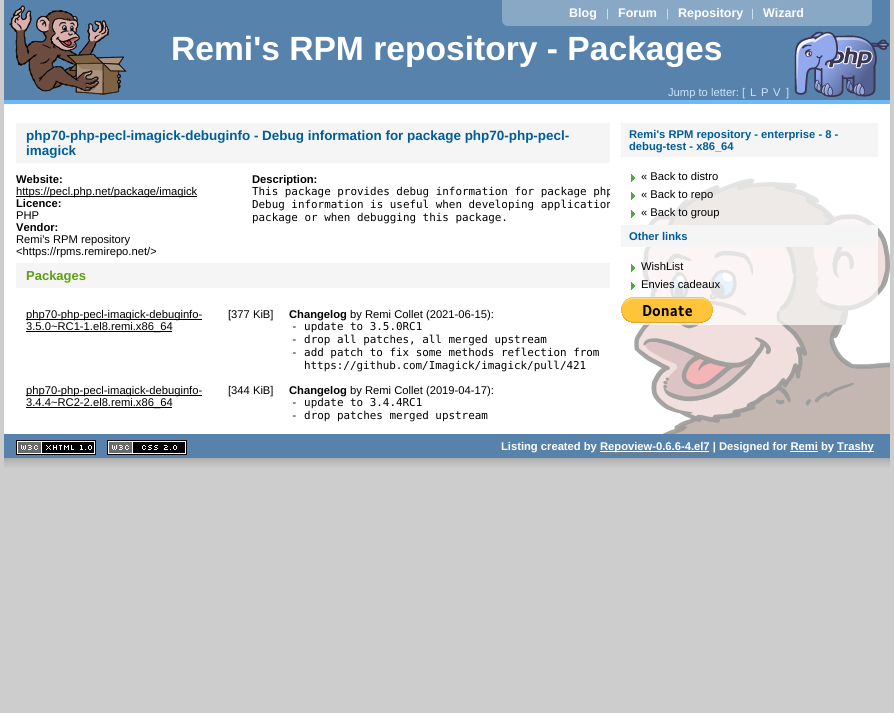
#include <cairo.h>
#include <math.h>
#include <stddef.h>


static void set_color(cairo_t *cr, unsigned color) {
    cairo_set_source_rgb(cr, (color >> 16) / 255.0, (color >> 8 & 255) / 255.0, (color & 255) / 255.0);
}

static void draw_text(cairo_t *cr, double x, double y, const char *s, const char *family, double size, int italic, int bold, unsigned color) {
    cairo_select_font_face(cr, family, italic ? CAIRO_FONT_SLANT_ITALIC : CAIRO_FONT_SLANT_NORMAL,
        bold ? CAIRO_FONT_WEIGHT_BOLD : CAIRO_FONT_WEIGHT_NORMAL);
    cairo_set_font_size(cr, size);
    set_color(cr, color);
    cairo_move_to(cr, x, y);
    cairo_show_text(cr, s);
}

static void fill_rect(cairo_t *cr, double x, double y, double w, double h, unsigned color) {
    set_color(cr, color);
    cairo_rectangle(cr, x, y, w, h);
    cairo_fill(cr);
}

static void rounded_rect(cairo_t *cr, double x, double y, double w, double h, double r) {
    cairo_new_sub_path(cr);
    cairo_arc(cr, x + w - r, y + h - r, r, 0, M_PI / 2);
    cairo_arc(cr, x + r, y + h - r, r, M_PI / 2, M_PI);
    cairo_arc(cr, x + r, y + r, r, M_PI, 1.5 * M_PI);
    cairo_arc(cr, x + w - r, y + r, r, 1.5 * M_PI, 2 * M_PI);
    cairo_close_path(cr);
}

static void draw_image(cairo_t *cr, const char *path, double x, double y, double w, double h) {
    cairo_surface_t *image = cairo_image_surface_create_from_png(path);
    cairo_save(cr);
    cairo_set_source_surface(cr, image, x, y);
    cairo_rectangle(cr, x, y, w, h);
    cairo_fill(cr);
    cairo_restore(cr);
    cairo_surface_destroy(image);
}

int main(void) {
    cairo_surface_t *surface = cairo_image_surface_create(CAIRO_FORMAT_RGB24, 894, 713);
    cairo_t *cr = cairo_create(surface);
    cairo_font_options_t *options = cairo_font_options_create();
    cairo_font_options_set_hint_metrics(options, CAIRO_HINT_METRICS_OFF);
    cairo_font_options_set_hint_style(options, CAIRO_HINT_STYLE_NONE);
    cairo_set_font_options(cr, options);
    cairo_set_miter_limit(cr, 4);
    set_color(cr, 0xCDCDCD);
    cairo_paint(cr);
    fill_rect(cr, 4, 104, 886, 330, 0xFFFFFF);
    draw_image(cr, "assets/img1.png", 634, 178, 256, 256);
    fill_rect(cr, 4, 0, 886, 100, 0x5782AC);
    set_color(cr, 0x89A8C5);
    cairo_new_path(cr);
    cairo_move_to(cr, 502, 0);
    cairo_line_to(cr, 872, 0);
    cairo_line_to(cr, 872, 20);
    cairo_curve_to(cr, 872, 23.5, 869.5, 26, 866, 26);
    cairo_line_to(cr, 508, 26);
    cairo_curve_to(cr, 504.5, 26, 502, 23.5, 502, 20);
    cairo_close_path(cr);
    cairo_fill(cr);
    draw_text(cr, 569, 17, "Blog", "Liberation Sans", 12.5, 0, 1, 0xFFFFFF);
    draw_text(cr, 606, 17, "|", "Liberation Sans", 11.2, 0, 0, 0xCAE4FC);
    draw_text(cr, 618, 17, "Forum", "Liberation Sans", 12.5, 0, 1, 0xFFFFFF);
    draw_text(cr, 666, 17, "|", "Liberation Sans", 11.2, 0, 0, 0xCAE4FC);
    draw_text(cr, 678, 17, "Repository", "Liberation Sans", 12.5, 0, 1, 0xFFFFFF);
    draw_text(cr, 751, 17, "|", "Liberation Sans", 11.2, 0, 0, 0xCAE4FC);
    draw_text(cr, 763, 17, "Wizard", "Liberation Sans", 12.5, 0, 1, 0xFFFFFF);
    draw_image(cr, "assets/img2.png", 794, 31, 95, 66);
    fill_rect(cr, 4, 100, 886, 4, 0x6DB9F7);
    draw_image(cr, "assets/img3.png", 9, 5, 118, 90);
    draw_text(cr, 171, 60, "Remi's RPM repository - Packages", "Liberation Sans", 33.6, 0, 1, 0xFFFFFF);
    draw_text(cr, 668, 96, "Jump to letter: [", "Liberation Sans", 11.2, 0, 0, 0xCAE4FC);
    draw_text(cr, 750, 96, "L", "Liberation Sans", 11.2, 0, 0, 0xCAE4FC);
    draw_text(cr, 761, 96, "P", "Liberation Sans", 11.2, 0, 0, 0xCAE4FC);
    draw_text(cr, 773, 96, "V", "Liberation Sans", 11.2, 0, 0, 0xCAE4FC);
    draw_text(cr, 786, 96, "]", "Liberation Sans", 11.2, 0, 0, 0xCAE4FC);
    fill_rect(cr, 16, 123, 594, 40, 0xF5F5F5);
    draw_text(cr, 26, 140, "php70-php-pecl-imagick-debuginfo - Debug information for package php70-php-pecl-", "Liberation Sans", 13.45, 0, 1, 0x005D99);
    draw_text(cr, 26, 155, "imagick", "Liberation Sans", 13.45, 0, 1, 0x005D99);
    draw_text(cr, 16, 183, "Website:", "Liberation Sans", 11.2, 0, 1, 0x000000);
    fill_rect(cr, 16, 196, 181, 1, 0x000000);
    draw_text(cr, 16, 195, "https://pecl.php.net/package/imagick", "Liberation Sans", 11.2, 0, 0, 0x000000);
    draw_text(cr, 16, 207, "Licence:", "Liberation Sans", 11.2, 0, 1, 0x000000);
    draw_text(cr, 16, 219, "PHP", "Liberation Sans", 11.2, 0, 0, 0x000000);
    draw_text(cr, 16, 231, "Vendor:", "Liberation Sans", 11.2, 0, 1, 0x000000);
    draw_text(cr, 16, 243, "Remi's RPM repository", "Liberation Sans", 11.2, 0, 0, 0x000000);
    draw_text(cr, 16, 255, "<https://rpms.remirepo.net/>", "Liberation Sans", 11.2, 0, 0, 0x000000);
    draw_text(cr, 252, 183, "Description:", "Liberation Sans", 11.2, 0, 1, 0x000000);
    cairo_save(cr);
    cairo_rectangle(cr, 252, 185, 358, 39);
    cairo_clip(cr);
    draw_text(cr, 252, 195, "This package provides debug information for package php", "DejaVu Sans Mono", 10.9, 0, 0, 0x000000);
    draw_text(cr, 252, 208, "Debug information is useful when developing application", "DejaVu Sans Mono", 10.9, 0, 0, 0x000000);
    cairo_restore(cr);
    draw_text(cr, 252, 221, "package or when debugging this package.", "DejaVu Sans Mono", 10.9, 0, 0, 0x000000);
    fill_rect(cr, 16, 263, 594, 25, 0xF5F5F5);
    draw_text(cr, 26, 280, "Packages", "Liberation Sans", 13, 0, 1, 0x5E9E14);
    fill_rect(cr, 26, 319, 176, 1, 0x000000);
    draw_text(cr, 26, 318, "php70-php-pecl-imagick-debuginfo-", "Liberation Sans", 11.2, 0, 0, 0x000000);
    fill_rect(cr, 26, 331, 146, 1, 0x000000);
    draw_text(cr, 26, 330, "3.5.0~RC1-1.el8.remi.x86_64", "Liberation Sans", 11.2, 0, 0, 0x000000);
    draw_text(cr, 228, 318, "[377 KiB]", "Liberation Sans", 11.2, 0, 0, 0x000000);
    draw_text(cr, 289, 318, "Changelog", "Liberation Sans", 11.2, 0, 1, 0x000000);
    draw_text(cr, 350, 318, "by Remi Collet (2021-06-15):", "Liberation Sans", 11.2, 0, 0, 0x000000);
    draw_text(cr, 291, 330, "- update to 3.5.0RC1", "DejaVu Sans Mono", 10.9, 0, 0, 0x000000);
    draw_text(cr, 291, 343, "- drop all patches, all merged upstream", "DejaVu Sans Mono", 10.9, 0, 0, 0x000000);
    draw_text(cr, 291, 356, "- add patch to fix some methods reflection from", "DejaVu Sans Mono", 10.9, 0, 0, 0x000000);
    draw_text(cr, 304, 369, "https://github.com/Imagick/imagick/pull/421", "DejaVu Sans Mono", 10.9, 0, 0, 0x000000);
    fill_rect(cr, 26, 395, 176, 1, 0x000000);
    draw_text(cr, 26, 394, "php70-php-pecl-imagick-debuginfo-", "Liberation Sans", 11.2, 0, 0, 0x000000);
    fill_rect(cr, 26, 407, 146, 1, 0x000000);
    draw_text(cr, 26, 406, "3.4.4~RC2-2.el8.remi.x86_64", "Liberation Sans", 11.2, 0, 0, 0x000000);
    draw_text(cr, 228, 394, "[344 KiB]", "Liberation Sans", 11.2, 0, 0, 0x000000);
    draw_text(cr, 289, 394, "Changelog", "Liberation Sans", 11.2, 0, 1, 0x000000);
    draw_text(cr, 350, 394, "by Remi Collet (2019-04-17):", "Liberation Sans", 11.2, 0, 0, 0x000000);
    draw_text(cr, 291, 406, "- update to 3.4.4RC1", "DejaVu Sans Mono", 10.9, 0, 0, 0x000000);
    draw_text(cr, 291, 419, "- drop patches merged upstream", "DejaVu Sans Mono", 10.9, 0, 0, 0x000000);
    cairo_set_source_rgba(cr, 1, 1, 1, 0.7);
    rounded_rect(cr, 621, 123, 257, 202, 6);
    cairo_fill(cr);
    fill_rect(cr, 621, 123, 257, 34, 0xF5F5F5);
    draw_text(cr, 629, 138, "Remi's RPM repository - enterprise - 8 -", "Liberation Sans", 11.2, 0, 1, 0x005D99);
    draw_text(cr, 629, 150, "debug-test - x86_64", "Liberation Sans", 11.2, 0, 1, 0x005D99);
    draw_image(cr, "assets/img4.png", 631, 174, 4, 8);
    draw_text(cr, 641, 180, "« Back to distro", "Liberation Sans", 11.2, 0, 0, 0x000000);
    draw_image(cr, "assets/img4.png", 631, 192, 4, 8);
    draw_text(cr, 641, 198, "« Back to repo", "Liberation Sans", 11.2, 0, 0, 0x000000);
    draw_image(cr, "assets/img4.png", 631, 210, 4, 8);
    draw_text(cr, 641, 216, "« Back to group", "Liberation Sans", 11.2, 0, 0, 0x000000);
    fill_rect(cr, 621, 225, 257, 22, 0xF5F5F5);
    draw_text(cr, 629, 240, "Other links", "Liberation Sans", 11.2, 0, 1, 0x005D99);
    draw_image(cr, "assets/img4.png", 631, 264, 4, 8);
    draw_text(cr, 641, 270, "WishList", "Liberation Sans", 11.2, 0, 0, 0x000000);
    draw_image(cr, "assets/img4.png", 631, 282, 4, 8);
    draw_text(cr, 641, 288, "Envies cadeaux", "Liberation Sans", 11.2, 0, 0, 0x000000);
    draw_image(cr, "assets/img5.png", 621, 297, 92, 26);
    draw_image(cr, "assets/img6.png", 4, 458, 886, 10);
    fill_rect(cr, 4, 434, 886, 24, 0x5682AB);
    draw_image(cr, "assets/img7.png", 16, 440, 80, 15);
    draw_image(cr, "assets/img8.png", 107, 440, 80, 15);
    draw_text(cr, 501, 450, "Listing created by", "Liberation Sans", 11.2, 0, 1, 0xFFFFFF);
    cairo_new_path(cr);
    cairo_move_to(cr, 600, 452.5);
    cairo_line_to(cr, 709, 452.5);
    set_color(cr, 0x808080);
    cairo_set_line_width(cr, 1);
    cairo_set_dash(cr, (double[]){1, 1}, 2, 0);
    cairo_stroke(cr);
    fill_rect(cr, 600, 451, 109, 1, 0xFFFFFF);
    draw_text(cr, 600, 450, "Repoview-0.6.6-4.el7 | Designed for Remi by", "Liberation Sans", 11.2, 0, 1, 0xFFFFFF);
    fill_rect(cr, 837, 451, 37, 1, 0xFFFFFF);
    draw_text(cr, 837, 450, "Trashy", "Liberation Sans", 11.2, 0, 1, 0xFFFFFF);
    fill_rect(cr, 790, 451, 28, 1, 0xFFFFFF);
    cairo_surface_write_to_png(surface, "output.png");
    cairo_font_options_destroy(options);
    cairo_destroy(cr);
    cairo_surface_destroy(surface);
    return 0;
}
